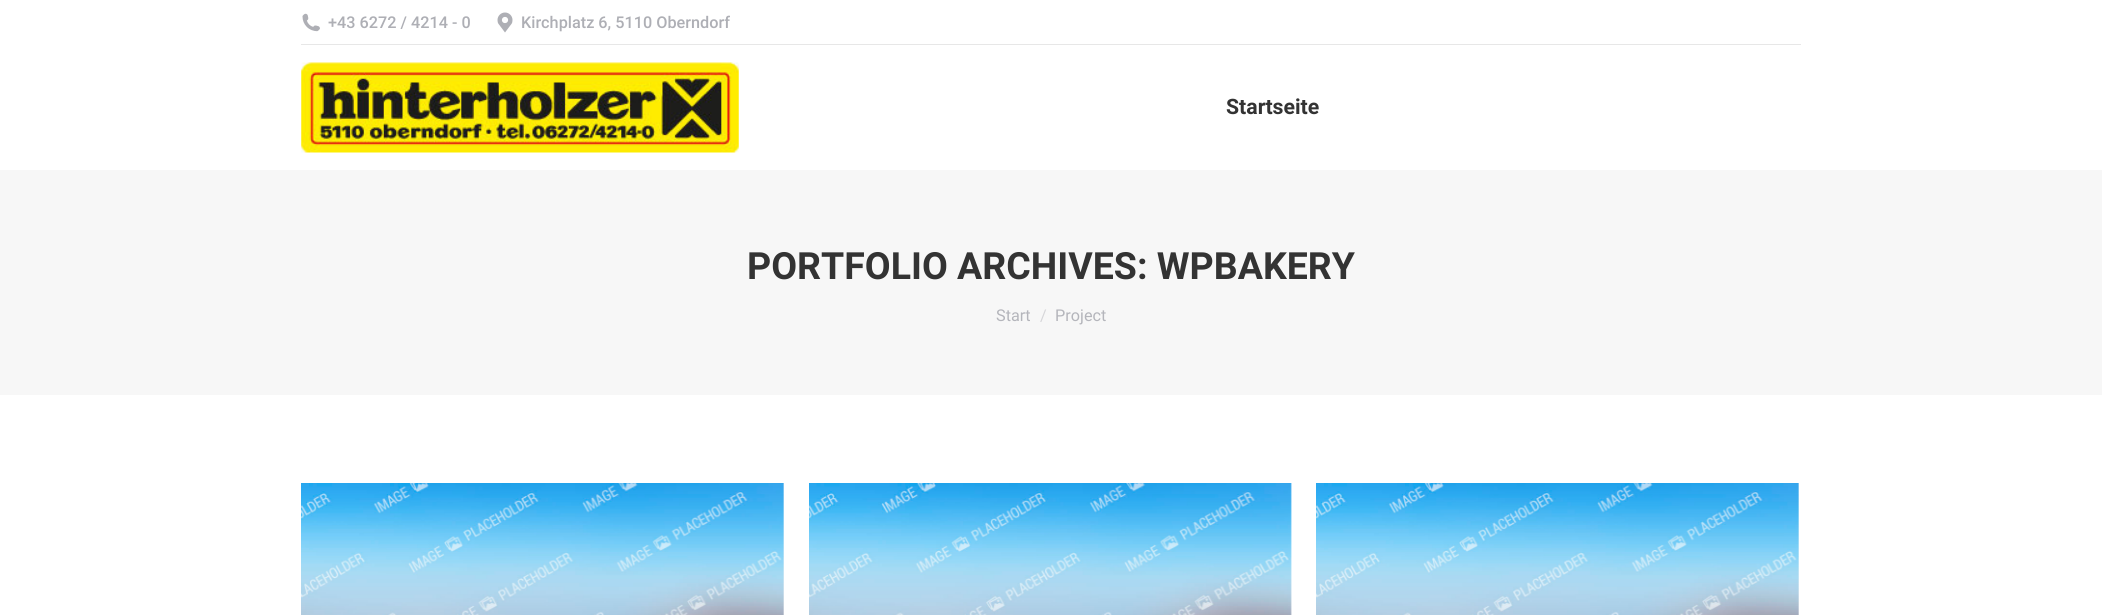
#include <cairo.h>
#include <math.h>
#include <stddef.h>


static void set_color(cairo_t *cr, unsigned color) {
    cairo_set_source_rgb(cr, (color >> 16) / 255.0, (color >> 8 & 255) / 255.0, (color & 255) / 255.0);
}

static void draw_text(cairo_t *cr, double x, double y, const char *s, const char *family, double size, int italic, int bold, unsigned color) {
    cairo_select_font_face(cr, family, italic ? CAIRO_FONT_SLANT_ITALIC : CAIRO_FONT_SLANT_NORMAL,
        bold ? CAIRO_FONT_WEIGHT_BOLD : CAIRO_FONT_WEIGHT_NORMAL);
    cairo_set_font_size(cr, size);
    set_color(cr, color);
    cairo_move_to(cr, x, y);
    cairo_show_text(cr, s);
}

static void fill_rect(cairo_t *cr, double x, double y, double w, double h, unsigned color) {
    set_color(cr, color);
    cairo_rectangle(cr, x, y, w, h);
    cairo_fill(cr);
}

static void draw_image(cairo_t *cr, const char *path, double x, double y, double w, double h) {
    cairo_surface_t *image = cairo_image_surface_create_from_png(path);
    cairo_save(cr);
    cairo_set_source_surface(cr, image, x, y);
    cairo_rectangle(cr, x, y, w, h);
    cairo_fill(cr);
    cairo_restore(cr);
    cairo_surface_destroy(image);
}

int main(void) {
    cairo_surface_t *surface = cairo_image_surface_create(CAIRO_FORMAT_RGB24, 2102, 615);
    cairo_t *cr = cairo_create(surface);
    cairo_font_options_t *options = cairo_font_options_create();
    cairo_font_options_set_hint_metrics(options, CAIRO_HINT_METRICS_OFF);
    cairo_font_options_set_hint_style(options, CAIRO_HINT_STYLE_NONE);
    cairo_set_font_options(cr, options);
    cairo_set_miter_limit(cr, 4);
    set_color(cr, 0xFFFFFF);
    cairo_paint(cr);
    draw_image(cr, "assets/img1.png", 302, 13, 18, 19);
    draw_text(cr, 328, 28, "+43 6272 / 4214 - 0", "Roboto Medium", 16.25, 0, 0, 0xAEAFB5);
    draw_image(cr, "assets/img2.png", 497, 12, 16, 21);
    draw_text(cr, 521, 28, "Kirchplatz 6, 5110 Oberndorf", "Roboto Medium", 16.25, 0, 0, 0xAEAFB5);
    fill_rect(cr, 301, 44, 1500, 1, 0xE7E7E7);
    draw_image(cr, "assets/img3.png", 301, 62, 438, 91);
    draw_text(cr, 1226, 114, "Startseite", "Roboto", 21.25, 0, 1, 0x333333);
    fill_rect(cr, 0, 170, 2102, 225, 0xF7F7F7);
    draw_text(cr, 747, 279, "PORTFOLIO ARCHIVES: WPBAKERY", "Roboto", 37.5, 0, 1, 0x333333);
    draw_text(cr, 996, 321, "Start", "Roboto", 16.25, 0, 0, 0xB4B5BB);
    draw_text(cr, 1040, 321, "/", "Roboto", 16.25, 0, 0, 0xD6D6D9);
    draw_text(cr, 1055, 321, "Project", "Roboto", 16.25, 0, 0, 0xB4B5BB);
    fill_rect(cr, 783, 483, 1, 132, 0xF7F7F7);
    draw_image(cr, "assets/img4.png", 301, 483, 483, 132);
    draw_image(cr, "assets/img5.png", 809, 483, 483, 132);
    fill_rect(cr, 1798, 483, 1, 132, 0xF7F7F7);
    draw_image(cr, "assets/img6.png", 1316, 483, 483, 132);
    cairo_surface_write_to_png(surface, "output.png");
    cairo_font_options_destroy(options);
    cairo_destroy(cr);
    cairo_surface_destroy(surface);
    return 0;
}
